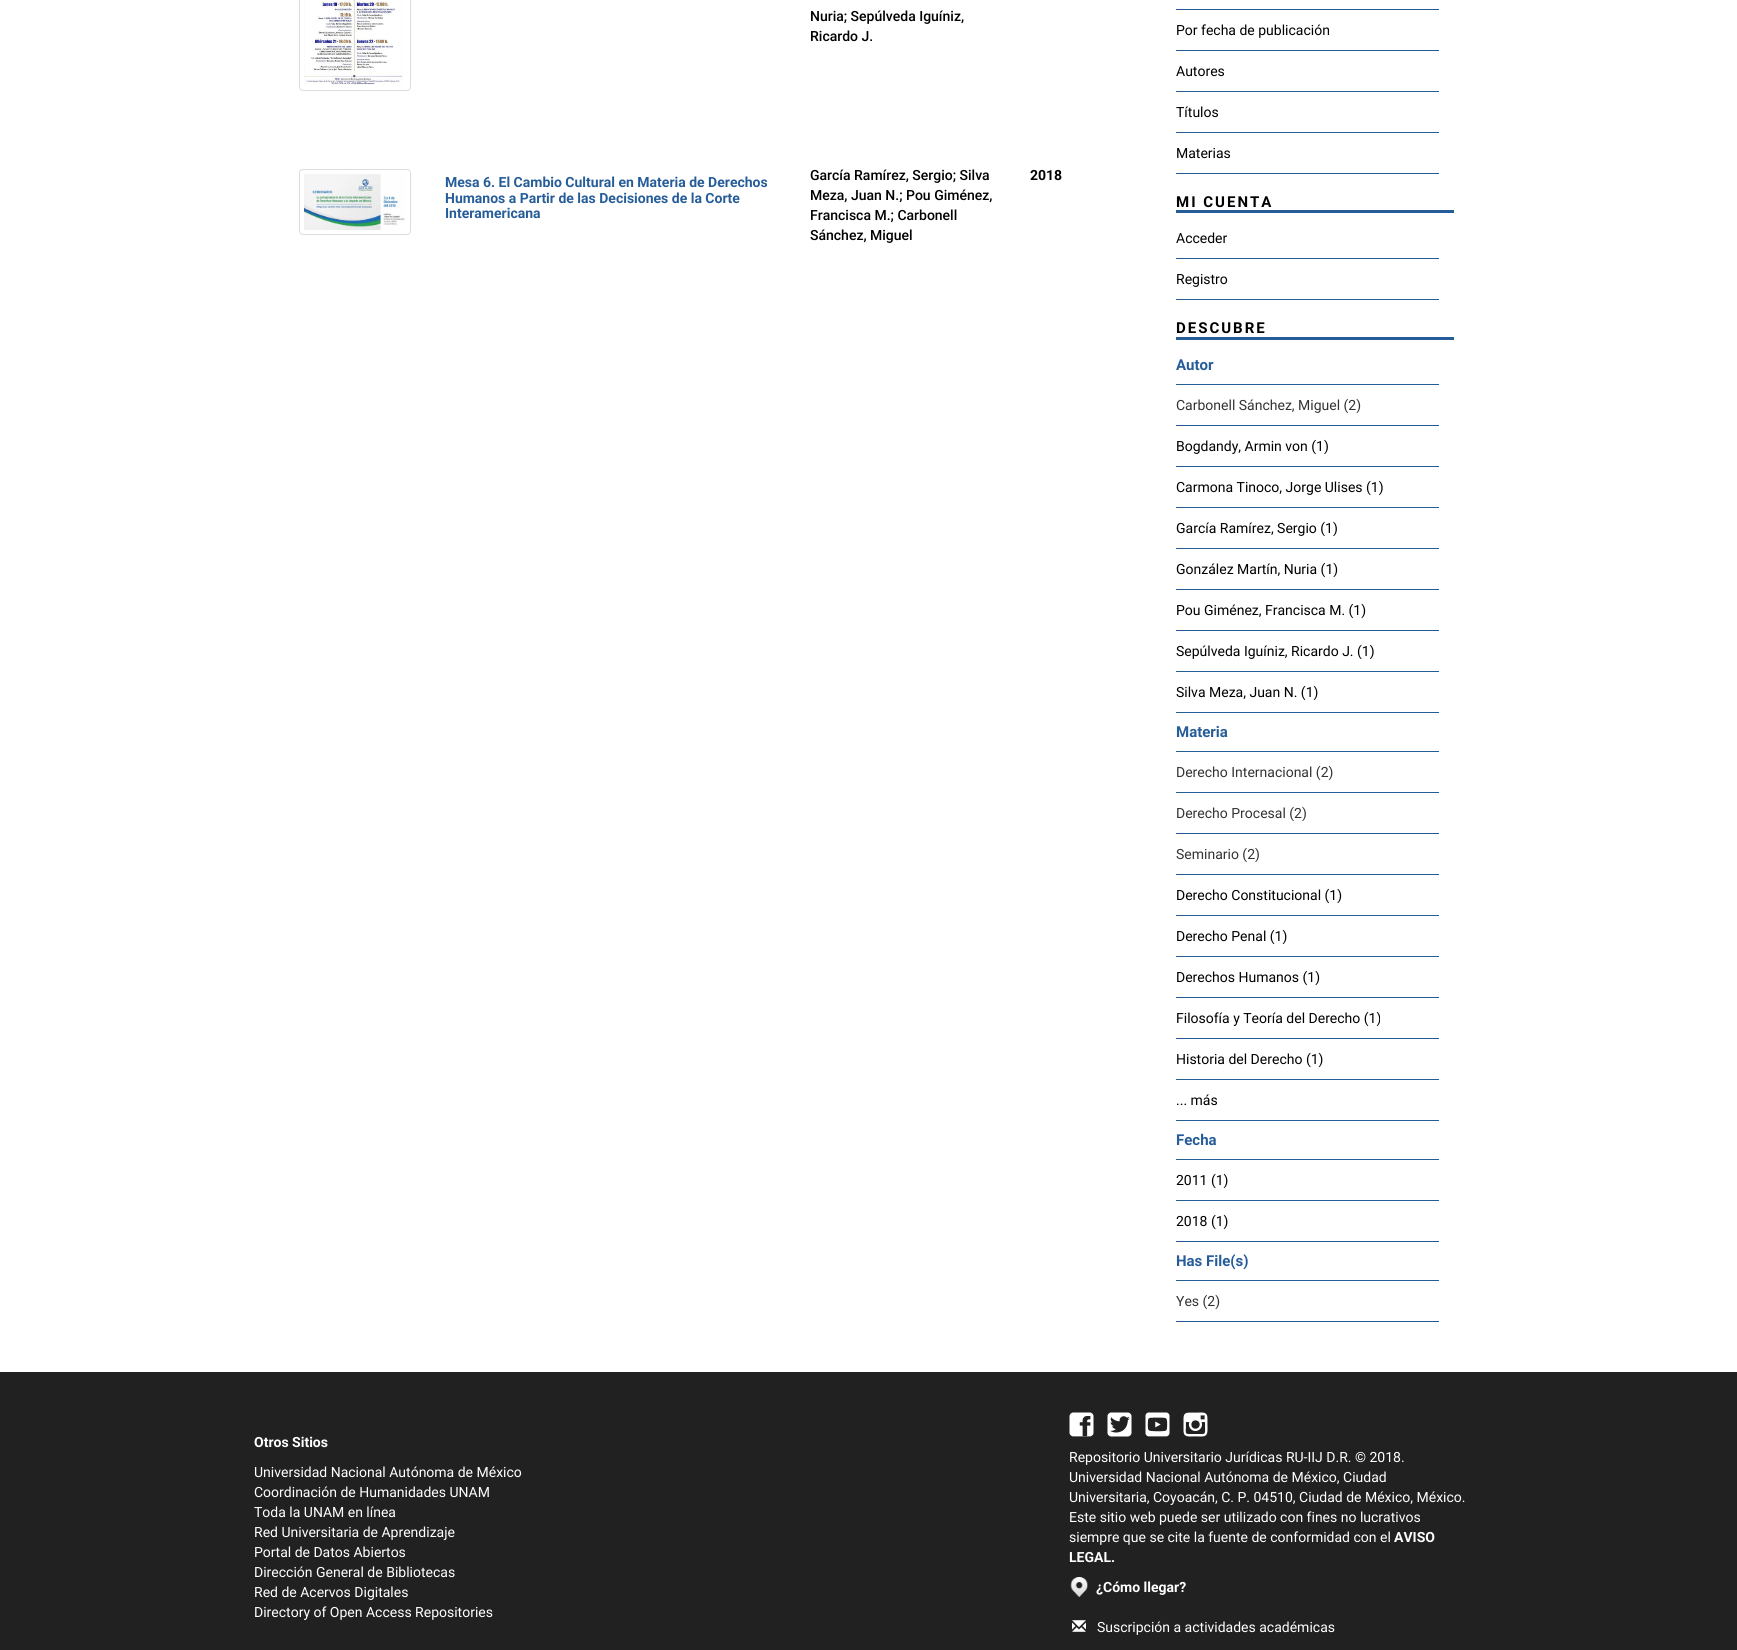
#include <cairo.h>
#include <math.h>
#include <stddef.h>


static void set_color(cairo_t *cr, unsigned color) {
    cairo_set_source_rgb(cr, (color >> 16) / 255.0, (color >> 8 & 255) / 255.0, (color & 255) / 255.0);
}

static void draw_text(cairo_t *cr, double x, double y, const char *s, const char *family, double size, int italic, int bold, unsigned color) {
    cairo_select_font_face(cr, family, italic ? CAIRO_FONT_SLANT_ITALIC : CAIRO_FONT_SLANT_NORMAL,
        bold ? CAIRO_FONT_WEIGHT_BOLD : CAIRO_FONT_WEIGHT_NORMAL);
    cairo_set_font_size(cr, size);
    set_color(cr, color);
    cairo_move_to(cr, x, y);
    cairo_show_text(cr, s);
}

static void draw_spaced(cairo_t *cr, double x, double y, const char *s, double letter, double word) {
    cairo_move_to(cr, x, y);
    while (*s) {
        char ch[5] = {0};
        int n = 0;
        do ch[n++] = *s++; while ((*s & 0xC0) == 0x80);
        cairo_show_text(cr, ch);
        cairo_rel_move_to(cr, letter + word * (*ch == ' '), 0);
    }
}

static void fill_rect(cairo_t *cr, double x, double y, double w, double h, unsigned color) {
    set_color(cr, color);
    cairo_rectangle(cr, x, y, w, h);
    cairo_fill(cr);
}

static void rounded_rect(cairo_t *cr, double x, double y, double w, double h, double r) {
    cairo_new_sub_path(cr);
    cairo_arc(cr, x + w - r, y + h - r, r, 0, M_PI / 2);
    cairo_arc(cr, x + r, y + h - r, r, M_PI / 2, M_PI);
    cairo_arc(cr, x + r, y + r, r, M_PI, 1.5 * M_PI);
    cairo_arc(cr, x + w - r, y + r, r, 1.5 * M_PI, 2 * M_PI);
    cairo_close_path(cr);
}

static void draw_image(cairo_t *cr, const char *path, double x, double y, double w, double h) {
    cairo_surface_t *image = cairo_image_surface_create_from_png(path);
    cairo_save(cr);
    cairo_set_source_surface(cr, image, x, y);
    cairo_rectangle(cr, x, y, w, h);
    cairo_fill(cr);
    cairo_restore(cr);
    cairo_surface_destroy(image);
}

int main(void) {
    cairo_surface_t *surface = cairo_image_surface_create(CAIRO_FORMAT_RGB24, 1737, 1650);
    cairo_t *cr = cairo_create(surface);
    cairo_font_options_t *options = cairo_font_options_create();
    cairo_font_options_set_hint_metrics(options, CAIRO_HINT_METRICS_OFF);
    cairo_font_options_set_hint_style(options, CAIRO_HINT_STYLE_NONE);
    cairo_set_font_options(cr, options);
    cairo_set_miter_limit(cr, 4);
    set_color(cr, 0xFFFFFF);
    cairo_paint(cr);
    rounded_rect(cr, 299.5, -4.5, 111, 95, 3.5);
    set_color(cr, 0xDDDDDD);
    cairo_set_line_width(cr, 1);
    cairo_stroke(cr);
    draw_image(cr, "assets/img1.png", 304, 0, 99, 85);
    draw_text(cr, 810, 21, "Nuria; Sepúlveda Iguíniz,", "Roboto Medium", 14, 0, 0, 0x000000);
    draw_text(cr, 810, 41, "Ricardo J.", "Roboto Medium", 14, 0, 0, 0x000000);
    rounded_rect(cr, 299.5, 169.5, 111, 65, 3.5);
    set_color(cr, 0xDDDDDD);
    cairo_stroke(cr);
    draw_image(cr, "assets/img2.png", 304, 174, 101, 56);
    draw_text(cr, 445, 187, "Mesa 6. El Cambio Cultural en Materia de Derechos", "Roboto", 14, 0, 1, 0x265D99);
    draw_text(cr, 445, 203, "Humanos a Partir de las Decisiones de la Corte", "Roboto", 14, 0, 1, 0x265D99);
    draw_text(cr, 445, 218, "Interamericana", "Roboto", 14, 0, 1, 0x265D99);
    draw_text(cr, 810, 180, "García Ramírez, Sergio; Silva", "Roboto Medium", 14, 0, 0, 0x000000);
    draw_text(cr, 810, 200, "Meza, Juan N.; Pou Giménez,", "Roboto Medium", 14, 0, 0, 0x000000);
    draw_text(cr, 810, 220, "Francisca M.; Carbonell", "Roboto Medium", 14, 0, 0, 0x000000);
    draw_text(cr, 810, 240, "Sánchez, Miguel", "Roboto Medium", 14, 0, 0, 0x000000);
    draw_text(cr, 1030, 180, "2018", "Roboto", 14, 0, 1, 0x000000);
    fill_rect(cr, 1176, 9, 263, 1, 0x265D99);
    draw_text(cr, 1176, 35, "Por fecha de publicación", "Roboto", 14, 0, 0, 0x000000);
    fill_rect(cr, 1176, 50, 263, 1, 0x265D99);
    draw_text(cr, 1176, 76, "Autores", "Roboto", 14, 0, 0, 0x000000);
    fill_rect(cr, 1176, 91, 263, 1, 0x265D99);
    draw_text(cr, 1176, 117, "Títulos", "Roboto", 14, 0, 0, 0x000000);
    fill_rect(cr, 1176, 132, 263, 1, 0x265D99);
    fill_rect(cr, 1176, 173, 263, 1, 0x265D99);
    draw_text(cr, 1176, 158, "Materias", "Roboto", 14, 0, 0, 0x000000);
    fill_rect(cr, 1176, 210, 278, 3, 0x265D99);
    cairo_select_font_face(cr, "Roboto", CAIRO_FONT_SLANT_NORMAL, CAIRO_FONT_WEIGHT_BOLD);
    cairo_set_font_size(cr, 15);
    set_color(cr, 0x000000);
    draw_spaced(cr, 1176, 207, "MI CUENTA", 2, 0);
    draw_text(cr, 1176, 243, "Acceder", "Roboto", 14, 0, 0, 0x000000);
    fill_rect(cr, 1176, 258, 263, 1, 0x265D99);
    fill_rect(cr, 1176, 299, 263, 1, 0x265D99);
    draw_text(cr, 1176, 284, "Registro", "Roboto", 14, 0, 0, 0x000000);
    fill_rect(cr, 1176, 337, 278, 3, 0x265D99);
    cairo_select_font_face(cr, "Roboto", CAIRO_FONT_SLANT_NORMAL, CAIRO_FONT_WEIGHT_BOLD);
    cairo_set_font_size(cr, 15);
    set_color(cr, 0x000000);
    draw_spaced(cr, 1176, 333, "DESCUBRE", 2, 0);
    draw_text(cr, 1176, 370, "Autor", "Roboto", 15, 0, 1, 0x265D99);
    fill_rect(cr, 1176, 384, 263, 1, 0x265D99);
    draw_text(cr, 1176, 410, "Carbonell Sánchez, Miguel (2)", "Roboto", 14, 0, 0, 0x333333);
    fill_rect(cr, 1176, 425, 263, 1, 0x265D99);
    draw_text(cr, 1176, 451, "Bogdandy, Armin von (1)", "Roboto", 14, 0, 0, 0x000000);
    fill_rect(cr, 1176, 466, 263, 1, 0x265D99);
    draw_text(cr, 1176, 492, "Carmona Tinoco, Jorge Ulises (1)", "Roboto", 14, 0, 0, 0x000000);
    fill_rect(cr, 1176, 507, 263, 1, 0x265D99);
    draw_text(cr, 1176, 533, "García Ramírez, Sergio (1)", "Roboto", 14, 0, 0, 0x000000);
    fill_rect(cr, 1176, 548, 263, 1, 0x265D99);
    draw_text(cr, 1176, 574, "González Martín, Nuria (1)", "Roboto", 14, 0, 0, 0x000000);
    fill_rect(cr, 1176, 589, 263, 1, 0x265D99);
    draw_text(cr, 1176, 615, "Pou Giménez, Francisca M. (1)", "Roboto", 14, 0, 0, 0x000000);
    fill_rect(cr, 1176, 630, 263, 1, 0x265D99);
    draw_text(cr, 1176, 656, "Sepúlveda Iguíniz, Ricardo J. (1)", "Roboto", 14, 0, 0, 0x000000);
    fill_rect(cr, 1176, 671, 263, 1, 0x265D99);
    fill_rect(cr, 1176, 712, 263, 1, 0x265D99);
    draw_text(cr, 1176, 697, "Silva Meza, Juan N. (1)", "Roboto", 14, 0, 0, 0x000000);
    draw_text(cr, 1176, 737, "Materia", "Roboto", 15, 0, 1, 0x265D99);
    fill_rect(cr, 1176, 751, 263, 1, 0x265D99);
    draw_text(cr, 1176, 777, "Derecho Internacional (2)", "Roboto", 14, 0, 0, 0x333333);
    fill_rect(cr, 1176, 792, 263, 1, 0x265D99);
    draw_text(cr, 1176, 818, "Derecho Procesal (2)", "Roboto", 14, 0, 0, 0x333333);
    fill_rect(cr, 1176, 833, 263, 1, 0x265D99);
    draw_text(cr, 1176, 859, "Seminario (2)", "Roboto", 14, 0, 0, 0x333333);
    fill_rect(cr, 1176, 874, 263, 1, 0x265D99);
    draw_text(cr, 1176, 900, "Derecho Constitucional (1)", "Roboto", 14, 0, 0, 0x000000);
    fill_rect(cr, 1176, 915, 263, 1, 0x265D99);
    draw_text(cr, 1176, 941, "Derecho Penal (1)", "Roboto", 14, 0, 0, 0x000000);
    fill_rect(cr, 1176, 956, 263, 1, 0x265D99);
    draw_text(cr, 1176, 982, "Derechos Humanos (1)", "Roboto", 14, 0, 0, 0x000000);
    fill_rect(cr, 1176, 997, 263, 1, 0x265D99);
    draw_text(cr, 1176, 1023, "Filosofía y Teoría del Derecho (1)", "Roboto", 14, 0, 0, 0x000000);
    fill_rect(cr, 1176, 1038, 263, 1, 0x265D99);
    draw_text(cr, 1176, 1064, "Historia del Derecho (1)", "Roboto", 14, 0, 0, 0x000000);
    fill_rect(cr, 1176, 1079, 263, 1, 0x265D99);
    fill_rect(cr, 1176, 1120, 263, 1, 0x265D99);
    draw_text(cr, 1176, 1105, "... más", "Roboto", 14, 0, 0, 0x000000);
    draw_text(cr, 1176, 1145, "Fecha", "Roboto", 15, 0, 1, 0x265D99);
    fill_rect(cr, 1176, 1159, 263, 1, 0x265D99);
    draw_text(cr, 1176, 1185, "2011 (1)", "Roboto", 14, 0, 0, 0x000000);
    fill_rect(cr, 1176, 1200, 263, 1, 0x265D99);
    fill_rect(cr, 1176, 1241, 263, 1, 0x265D99);
    draw_text(cr, 1176, 1226, "2018 (1)", "Roboto", 14, 0, 0, 0x000000);
    draw_text(cr, 1176, 1266, "Has File(s)", "Roboto", 15, 0, 1, 0x265D99);
    fill_rect(cr, 1176, 1280, 263, 1, 0x265D99);
    fill_rect(cr, 1176, 1321, 263, 1, 0x265D99);
    draw_text(cr, 1176, 1306, "Yes (2)", "Roboto", 14, 0, 0, 0x333333);
    fill_rect(cr, 0, 1372, 1737, 278, 0x212121);
    draw_text(cr, 254, 1447, "Otros Sitios", "Roboto", 14, 0, 1, 0xFFFFFF);
    draw_text(cr, 254, 1477, "Universidad Nacional Autónoma de México", "Roboto", 14, 0, 0, 0xFFFFFF);
    draw_text(cr, 254, 1497, "Coordinación de Humanidades UNAM", "Roboto", 14, 0, 0, 0xFFFFFF);
    draw_text(cr, 254, 1517, "Toda la UNAM en línea", "Roboto", 14, 0, 0, 0xFFFFFF);
    draw_text(cr, 254, 1537, "Red Universitaria de Aprendizaje", "Roboto", 14, 0, 0, 0xFFFFFF);
    draw_text(cr, 254, 1557, "Portal de Datos Abiertos", "Roboto", 14, 0, 0, 0xFFFFFF);
    draw_text(cr, 254, 1577, "Dirección General de Bibliotecas", "Roboto", 14, 0, 0, 0xFFFFFF);
    draw_text(cr, 254, 1597, "Red de Acervos Digitales", "Roboto", 14, 0, 0, 0xFFFFFF);
    draw_text(cr, 254, 1617, "Directory of Open Access Repositories", "Roboto", 14, 0, 0, 0xFFFFFF);
    draw_image(cr, "assets/img3.png", 1069, 1412, 25, 25);
    draw_image(cr, "assets/img4.png", 1107, 1412, 25, 25);
    draw_image(cr, "assets/img5.png", 1145, 1412, 25, 25);
    draw_image(cr, "assets/img6.png", 1183, 1412, 25, 25);
    draw_text(cr, 1069, 1462, "Repositorio Universitario Jurídicas RU-IIJ D.R. © 2018.", "Roboto", 14, 0, 0, 0xFFFFFF);
    draw_text(cr, 1069, 1482, "Universidad Nacional Autónoma de México, Ciudad", "Roboto", 14, 0, 0, 0xFFFFFF);
    draw_text(cr, 1069, 1502, "Universitaria, Coyoacán, C. P. 04510, Ciudad de México, México.", "Roboto", 14, 0, 0, 0xFFFFFF);
    draw_text(cr, 1069, 1522, "Este sitio web puede ser utilizado con fines no lucrativos", "Roboto", 14, 0, 0, 0xFFFFFF);
    draw_text(cr, 1069, 1542, "siempre que se cite la fuente de conformidad con el", "Roboto", 14, 0, 0, 0xFFFFFF);
    draw_text(cr, 1394, 1542, "AVISO", "Roboto", 14, 0, 1, 0xFFFFFF);
    draw_text(cr, 1069, 1562, "LEGAL.", "Roboto", 14, 0, 1, 0xFFFFFF);
    draw_image(cr, "assets/img7.png", 1070, 1577, 18, 20);
    draw_text(cr, 1096, 1592, "¿Cómo llegar?", "Roboto", 14, 0, 1, 0xFFFFFF);
    draw_image(cr, "assets/img8.png", 1072, 1620, 14, 12);
    draw_text(cr, 1097, 1632, "Suscripción a actividades académicas", "Roboto", 14, 0, 0, 0xFFFFFF);
    cairo_surface_write_to_png(surface, "output.png");
    cairo_font_options_destroy(options);
    cairo_destroy(cr);
    cairo_surface_destroy(surface);
    return 0;
}
